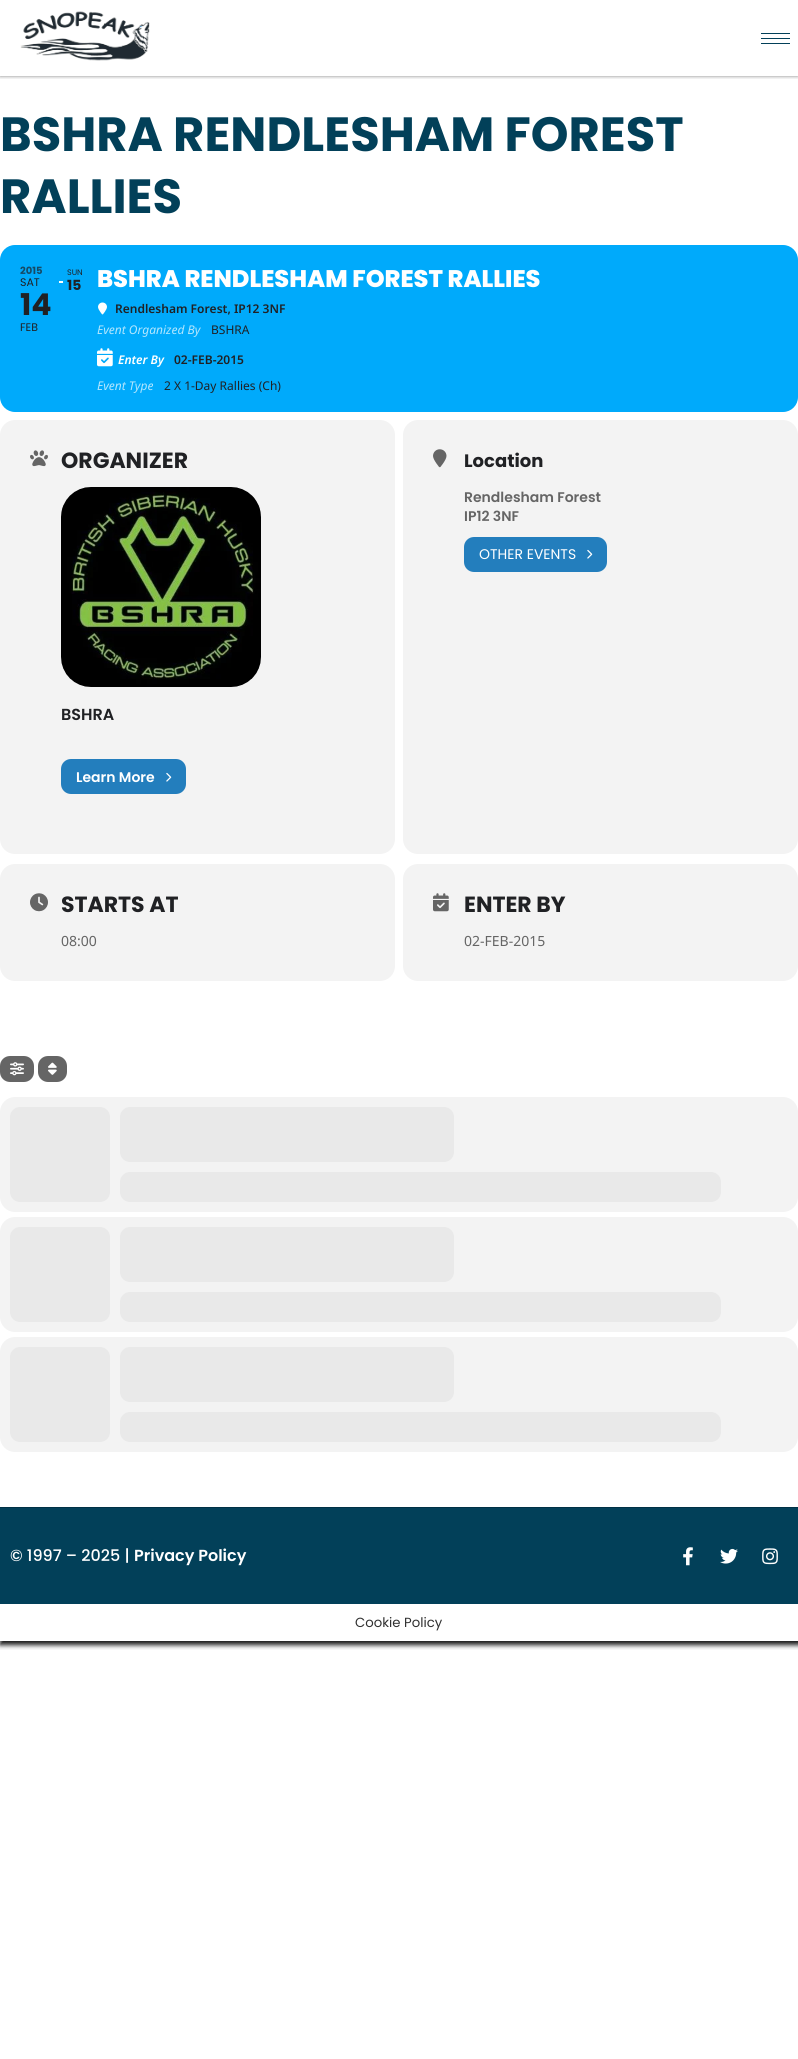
#include <cairo.h>
#include <math.h>
#include <stddef.h>


static void set_color(cairo_t *cr, unsigned color) {
    cairo_set_source_rgb(cr, (color >> 16) / 255.0, (color >> 8 & 255) / 255.0, (color & 255) / 255.0);
}

static void draw_text(cairo_t *cr, double x, double y, const char *s, const char *family, double size, int italic, int bold, unsigned color) {
    cairo_select_font_face(cr, family, italic ? CAIRO_FONT_SLANT_ITALIC : CAIRO_FONT_SLANT_NORMAL,
        bold ? CAIRO_FONT_WEIGHT_BOLD : CAIRO_FONT_WEIGHT_NORMAL);
    cairo_set_font_size(cr, size);
    set_color(cr, color);
    cairo_move_to(cr, x, y);
    cairo_show_text(cr, s);
}

static void fill_rect(cairo_t *cr, double x, double y, double w, double h, unsigned color) {
    set_color(cr, color);
    cairo_rectangle(cr, x, y, w, h);
    cairo_fill(cr);
}

static void rounded_rect(cairo_t *cr, double x, double y, double w, double h, double r) {
    cairo_new_sub_path(cr);
    cairo_arc(cr, x + w - r, y + h - r, r, 0, M_PI / 2);
    cairo_arc(cr, x + r, y + h - r, r, M_PI / 2, M_PI);
    cairo_arc(cr, x + r, y + r, r, M_PI, 1.5 * M_PI);
    cairo_arc(cr, x + w - r, y + r, r, 1.5 * M_PI, 2 * M_PI);
    cairo_close_path(cr);
}

static void draw_shadow(cairo_t *cr, double x, double y, double w, double h, double r, double blur, double alpha) {
    cairo_push_group_with_content(cr, CAIRO_CONTENT_ALPHA);
    cairo_set_operator(cr, CAIRO_OPERATOR_SOURCE);
    for (int i = 15; i >= -15 && fmin(w, h) + blur * i / 3 > 0; i -= 2) {
        double e = blur * i / 6;
        cairo_set_source_rgba(cr, 0, 0, 0, alpha * erfc((i - 1) / 8.5) / 2);
        rounded_rect(cr, x - e, y - e, w + 2 * e, h + 2 * e, fmax(0, fmin(r + e + blur * .6, fmin(w, h) / 2 + e)));
        cairo_fill(cr);
    }
    cairo_pattern_t *soft = cairo_pop_group(cr);
    cairo_mask(cr, soft);
    cairo_pattern_destroy(soft);
}

static void draw_image(cairo_t *cr, const char *path, double x, double y, double w, double h) {
    cairo_surface_t *image = cairo_image_surface_create_from_png(path);
    cairo_save(cr);
    cairo_set_source_surface(cr, image, x, y);
    cairo_rectangle(cr, x, y, w, h);
    cairo_fill(cr);
    cairo_restore(cr);
    cairo_surface_destroy(image);
}

int main(void) {
    cairo_surface_t *surface = cairo_image_surface_create(CAIRO_FORMAT_RGB24, 798, 2059);
    cairo_t *cr = cairo_create(surface);
    cairo_font_options_t *options = cairo_font_options_create();
    cairo_font_options_set_hint_metrics(options, CAIRO_HINT_METRICS_OFF);
    cairo_font_options_set_hint_style(options, CAIRO_HINT_STYLE_NONE);
    cairo_set_font_options(cr, options);
    cairo_set_miter_limit(cr, 4);
    set_color(cr, 0xFFFFFF);
    cairo_paint(cr);
    cairo_save(cr);
    cairo_rectangle(cr, 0, 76, 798, 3);
    cairo_clip(cr);
    set_color(cr, 0x000000);
    draw_shadow(cr, 0, 0, 798, 76, 0, 2, 0.5);
    cairo_restore(cr);
    draw_image(cr, "assets/img1.png", 20, 11, 130, 50);
    fill_rect(cr, 761, 33, 29, 1, 0x024059);
    fill_rect(cr, 761, 38, 29, 1, 0x024059);
    fill_rect(cr, 761, 43, 29, 1, 0x024059);
    draw_text(cr, 0, 151, "BSHRA RENDLESHAM FOREST", "Poppins", 48, 0, 1, 0x024059);
    draw_text(cr, 0, 213, "RALLIES", "Poppins", 48, 0, 1, 0x024059);
    set_color(cr, 0x00AAFB);
    rounded_rect(cr, 0, 245, 798, 167, 15);
    cairo_fill(cr);
    draw_text(cr, 20, 274, "2015", "Poppins", 10, 0, 1, 0x164A65);
    draw_text(cr, 20, 286, "SAT", "Poppins", 11, 0, 0, 0x202124);
    draw_text(cr, 20, 315, "14", "Poppins", 30, 0, 1, 0x202124);
    draw_text(cr, 20, 331, "FEB", "Poppins", 11, 0, 0, 0x202124);
    draw_text(cr, 67, 275, "SUN", "Poppins", 8, 0, 0, 0x202124);
    fill_rect(cr, 59, 281, 4, 2, 0xFFFFFF);
    draw_text(cr, 67, 290, "15", "Poppins", 14, 0, 1, 0x202124);
    draw_text(cr, 97, 287, "BSHRA RENDLESHAM FOREST RALLIES", "Poppins ExtraBold", 24, 0, 0, 0xFFFFFF);
    draw_image(cr, "assets/img2.png", 98, 302, 9, 13);
    draw_text(cr, 115, 313, "Rendlesham Forest, IP12 3NF", "Noto Sans SemiBold", 12, 0, 0, 0x202124);
    draw_text(cr, 97, 334, "Event Organized By", "Noto Sans", 12, 1, 0, 0xB3E6FE);
    draw_text(cr, 211, 334, "BSHRA", "Noto Sans", 12, 0, 0, 0x202124);
    draw_image(cr, "assets/img3.png", 97, 348, 16, 19);
    draw_text(cr, 118, 364, "Enter By", "Noto Sans SemiBold", 12, 1, 0, 0xFFFFFF);
    draw_text(cr, 174, 364, "02-FEB-2015", "Noto Sans SemiBold", 12, 0, 0, 0x202124);
    draw_text(cr, 97, 390, "Event Type", "Noto Sans", 12, 1, 0, 0xB3E6FE);
    draw_text(cr, 164, 390, "2 X 1-Day Rallies (Ch)", "Noto Sans", 12, 0, 0, 0x202124);
    set_color(cr, 0xF3F3F3);
    rounded_rect(cr, 0, 420, 395, 434, 15);
    cairo_fill(cr);
    draw_image(cr, "assets/img4.png", 30, 450, 18, 17);
    draw_text(cr, 61, 468, "ORGANIZER", "Poppins", 22, 0, 1, 0x202124);
    draw_image(cr, "assets/img5.png", 61, 487, 200, 200);
    draw_text(cr, 61, 720, "BSHRA", "Poppins SemiBold", 16, 0, 0, 0x202124);
    set_color(cr, 0x237EBD);
    rounded_rect(cr, 61, 759, 125, 35, 10);
    cairo_fill(cr);
    draw_text(cr, 76, 782, "Learn More", "Poppins SemiBold", 14, 0, 0, 0xFFFFFF);
    draw_image(cr, "assets/img6.png", 166, 772, 6, 10);
    set_color(cr, 0xF3F3F3);
    rounded_rect(cr, 403, 420, 395, 434, 15);
    cairo_fill(cr);
    draw_image(cr, "assets/img7.png", 433, 449, 14, 19);
    draw_text(cr, 464, 467, "Location", "Poppins", 18, 0, 1, 0x202124);
    draw_text(cr, 464, 502, "Rendlesham Forest", "Poppins SemiBold", 14, 0, 0, 0x656565);
    draw_text(cr, 464, 521, "IP12 3NF", "Poppins SemiBold", 14, 0, 0, 0x656565);
    set_color(cr, 0x237EBD);
    rounded_rect(cr, 464, 537, 143, 35, 10);
    cairo_fill(cr);
    draw_text(cr, 479, 559, "OTHER EVENTS", "Poppins", 14, 0, 0, 0xFFFFFF);
    draw_image(cr, "assets/img6.png", 587, 549, 6, 10);
    set_color(cr, 0xF3F3F3);
    rounded_rect(cr, 0, 864, 395, 117, 15);
    cairo_fill(cr);
    draw_image(cr, "assets/img8.png", 30, 893, 18, 19);
    draw_text(cr, 61, 912, "STARTS AT", "Poppins", 22, 0, 1, 0x202124);
    draw_text(cr, 61, 946, "08:00", "Noto Sans", 14, 0, 0, 0x656565);
    set_color(cr, 0xF3F3F3);
    rounded_rect(cr, 403, 864, 395, 117, 15);
    cairo_fill(cr);
    draw_image(cr, "assets/img9.png", 433, 893, 16, 19);
    draw_text(cr, 464, 912, "ENTER BY", "Poppins", 22, 0, 1, 0x202124);
    draw_text(cr, 464, 946, "02-FEB-2015", "Noto Sans", 14, 0, 0, 0x656565);
    rounded_rect(cr, 0, 1056, 34, 26, 10);
    cairo_fill(cr);
    draw_image(cr, "assets/img10.png", 10, 1062, 14, 14);
    rounded_rect(cr, 38, 1056, 29, 26, 10);
    cairo_fill(cr);
    draw_image(cr, "assets/img11.png", 48, 1062, 9, 13);
    set_color(cr, 0xF3F3F3);
    rounded_rect(cr, 0, 1097, 798, 115, 15);
    cairo_fill(cr);
    set_color(cr, 0xE9E9E9);
    rounded_rect(cr, 10, 1107, 100, 95, 10);
    cairo_fill(cr);
    rounded_rect(cr, 120, 1107, 334, 55, 10);
    cairo_fill(cr);
    rounded_rect(cr, 120, 1172, 601, 30, 10);
    cairo_fill(cr);
    set_color(cr, 0xF3F3F3);
    rounded_rect(cr, 0, 1217, 798, 115, 15);
    cairo_fill(cr);
    set_color(cr, 0xE9E9E9);
    rounded_rect(cr, 10, 1227, 100, 95, 10);
    cairo_fill(cr);
    rounded_rect(cr, 120, 1227, 334, 55, 10);
    cairo_fill(cr);
    rounded_rect(cr, 120, 1292, 601, 30, 10);
    cairo_fill(cr);
    set_color(cr, 0xF3F3F3);
    rounded_rect(cr, 0, 1337, 798, 115, 15);
    cairo_fill(cr);
    set_color(cr, 0xE9E9E9);
    rounded_rect(cr, 10, 1347, 100, 95, 10);
    cairo_fill(cr);
    rounded_rect(cr, 120, 1347, 334, 55, 10);
    cairo_fill(cr);
    rounded_rect(cr, 120, 1412, 601, 30, 10);
    cairo_fill(cr);
    cairo_save(cr);
    cairo_rectangle(cr, 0, 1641, 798, 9);
    cairo_clip(cr);
    set_color(cr, 0x161616);
    draw_shadow(cr, 0, 1604, 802, 41, 0, 2.5, 1);
    cairo_restore(cr);
    fill_rect(cr, 0, 1508, 798, 96, 0x024059);
    fill_rect(cr, 0, 1507, 798, 1, 0x003145);
    draw_text(cr, 10, 1561, "© 1997 – 2025 |", "Poppins Medium", 16, 0, 0, 0xFFFFFF);
    draw_text(cr, 134, 1561, "Privacy Policy", "Poppins SemiBold", 16, 0, 0, 0xFFFFFF);
    draw_image(cr, "assets/img12.png", 683, 1547, 10, 19);
    draw_image(cr, "assets/img13.png", 720, 1548, 18, 16);
    draw_image(cr, "assets/img14.png", 762, 1548, 16, 17);
    draw_text(cr, 355, 1627, "Cookie Policy", "Poppins", 13.25, 0, 0, 0x303030);
    cairo_surface_write_to_png(surface, "output.png");
    cairo_font_options_destroy(options);
    cairo_destroy(cr);
    cairo_surface_destroy(surface);
    return 0;
}
